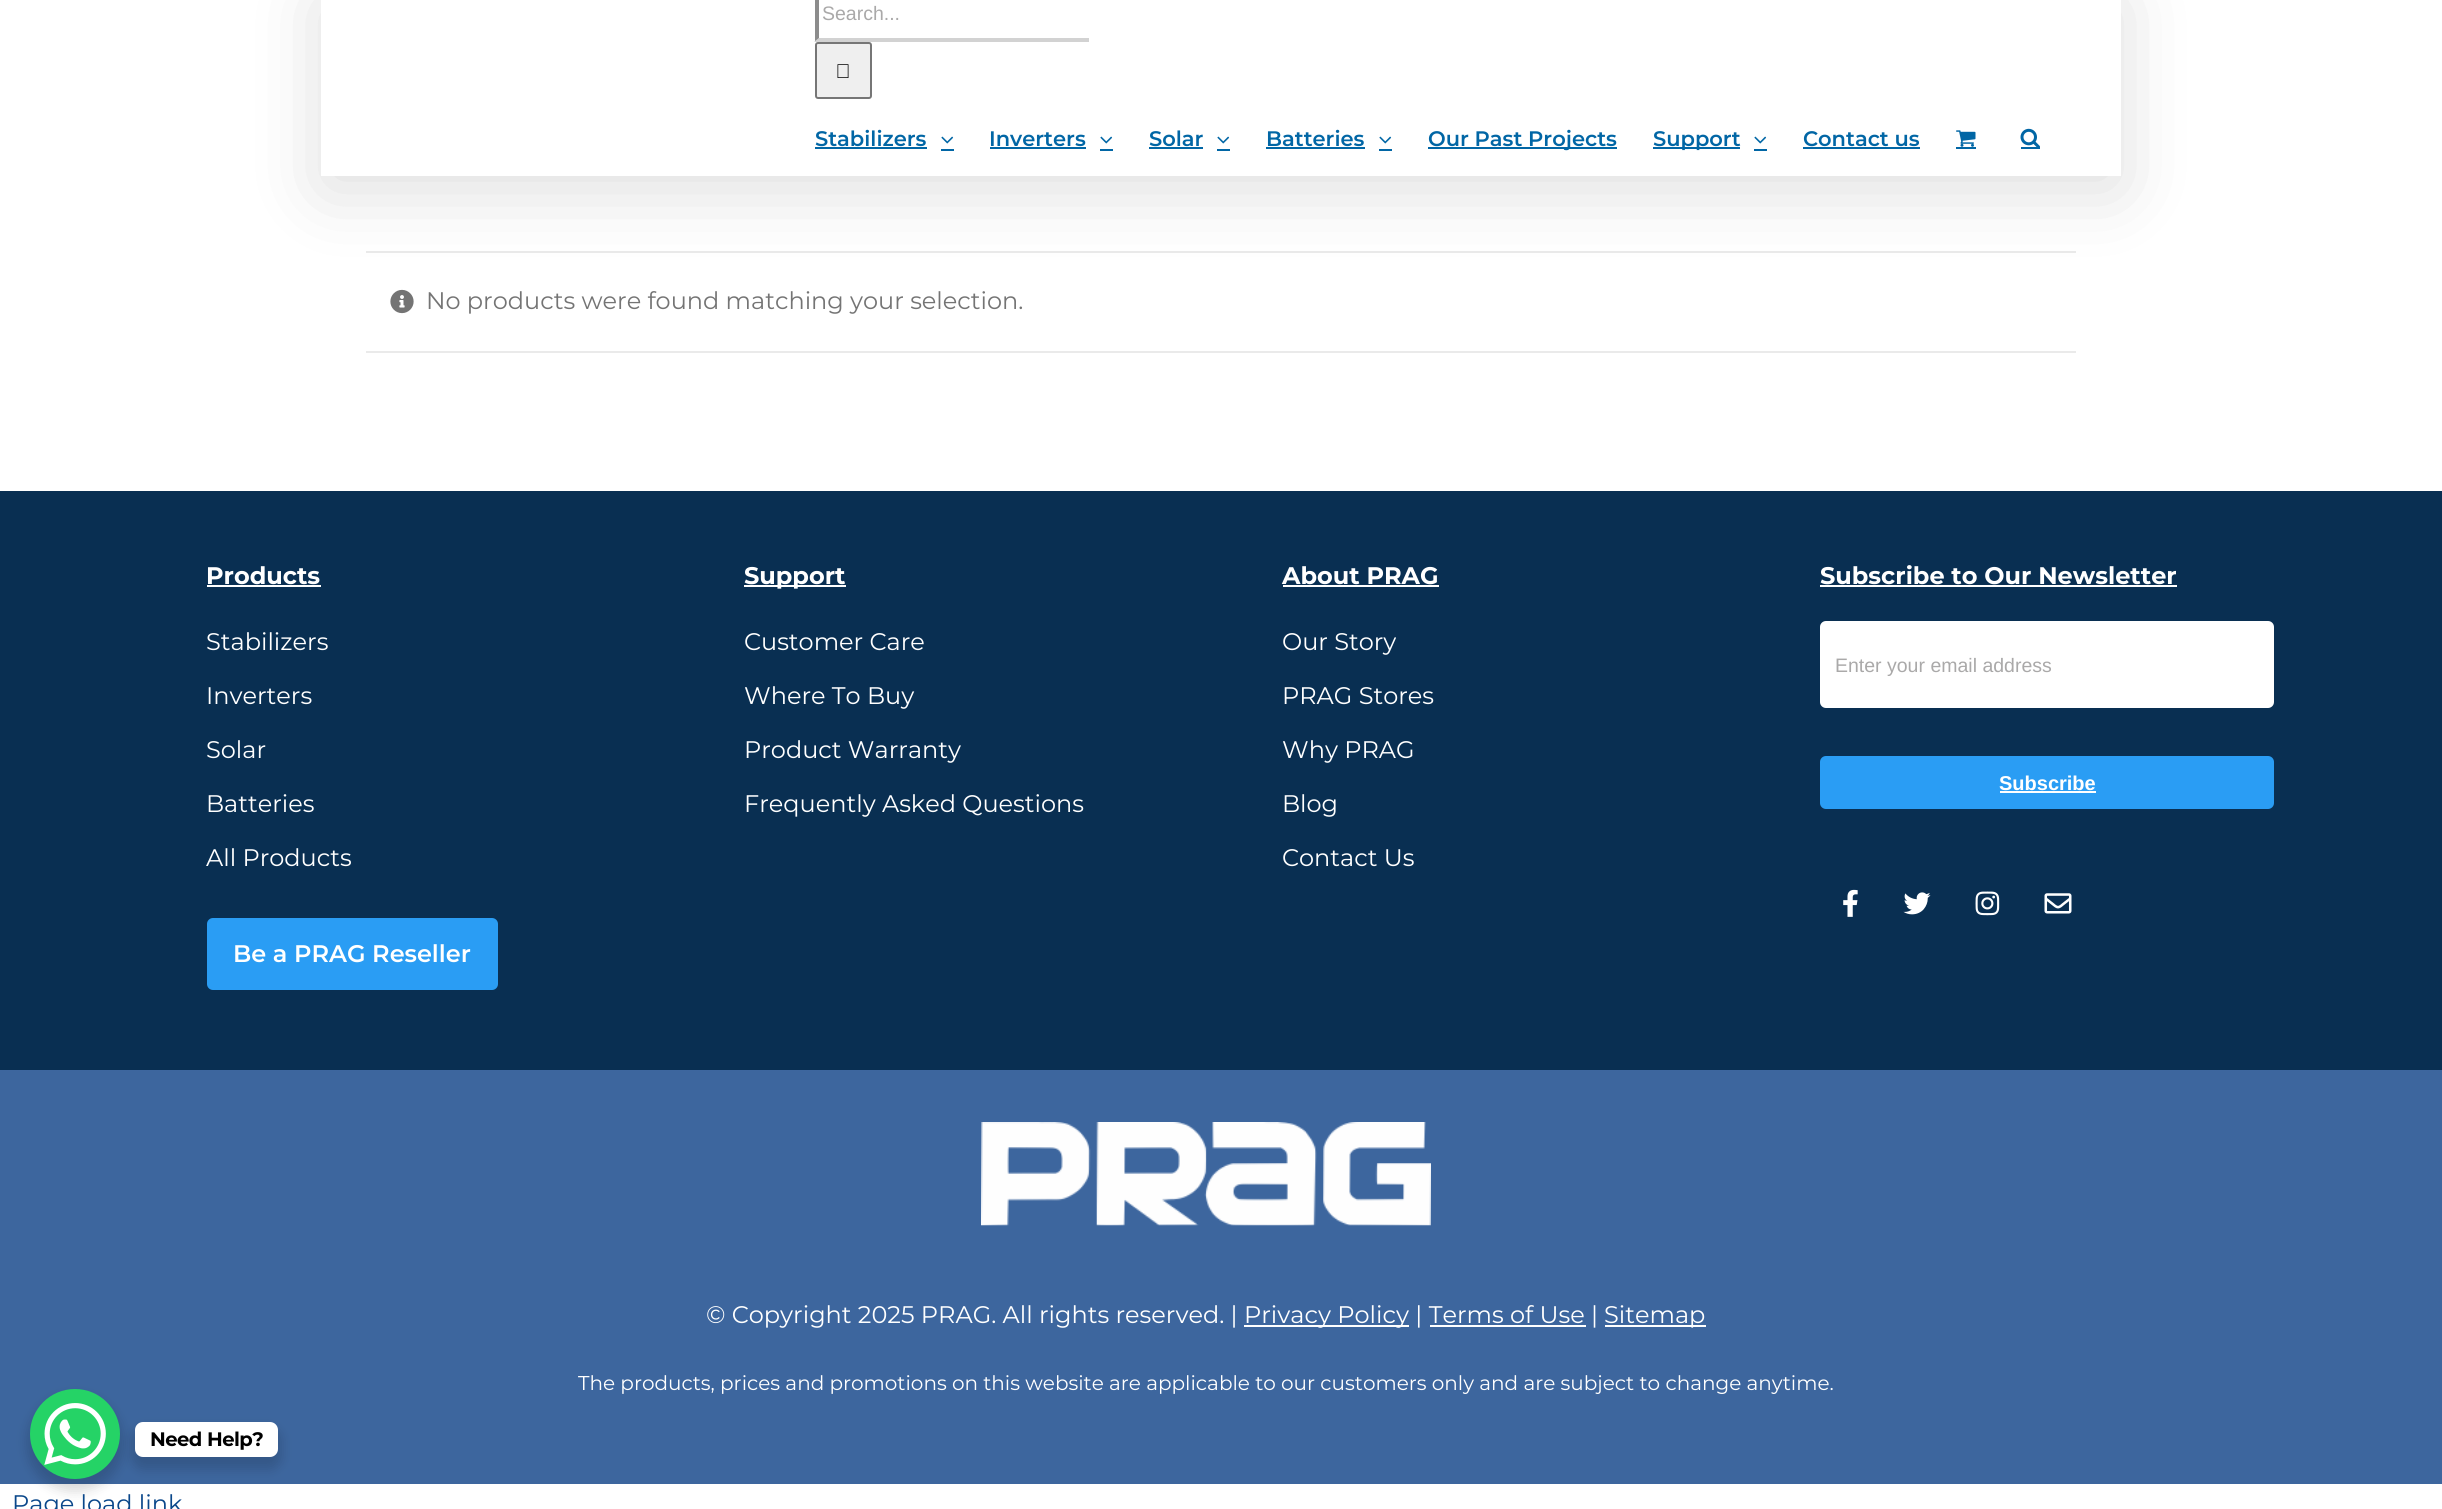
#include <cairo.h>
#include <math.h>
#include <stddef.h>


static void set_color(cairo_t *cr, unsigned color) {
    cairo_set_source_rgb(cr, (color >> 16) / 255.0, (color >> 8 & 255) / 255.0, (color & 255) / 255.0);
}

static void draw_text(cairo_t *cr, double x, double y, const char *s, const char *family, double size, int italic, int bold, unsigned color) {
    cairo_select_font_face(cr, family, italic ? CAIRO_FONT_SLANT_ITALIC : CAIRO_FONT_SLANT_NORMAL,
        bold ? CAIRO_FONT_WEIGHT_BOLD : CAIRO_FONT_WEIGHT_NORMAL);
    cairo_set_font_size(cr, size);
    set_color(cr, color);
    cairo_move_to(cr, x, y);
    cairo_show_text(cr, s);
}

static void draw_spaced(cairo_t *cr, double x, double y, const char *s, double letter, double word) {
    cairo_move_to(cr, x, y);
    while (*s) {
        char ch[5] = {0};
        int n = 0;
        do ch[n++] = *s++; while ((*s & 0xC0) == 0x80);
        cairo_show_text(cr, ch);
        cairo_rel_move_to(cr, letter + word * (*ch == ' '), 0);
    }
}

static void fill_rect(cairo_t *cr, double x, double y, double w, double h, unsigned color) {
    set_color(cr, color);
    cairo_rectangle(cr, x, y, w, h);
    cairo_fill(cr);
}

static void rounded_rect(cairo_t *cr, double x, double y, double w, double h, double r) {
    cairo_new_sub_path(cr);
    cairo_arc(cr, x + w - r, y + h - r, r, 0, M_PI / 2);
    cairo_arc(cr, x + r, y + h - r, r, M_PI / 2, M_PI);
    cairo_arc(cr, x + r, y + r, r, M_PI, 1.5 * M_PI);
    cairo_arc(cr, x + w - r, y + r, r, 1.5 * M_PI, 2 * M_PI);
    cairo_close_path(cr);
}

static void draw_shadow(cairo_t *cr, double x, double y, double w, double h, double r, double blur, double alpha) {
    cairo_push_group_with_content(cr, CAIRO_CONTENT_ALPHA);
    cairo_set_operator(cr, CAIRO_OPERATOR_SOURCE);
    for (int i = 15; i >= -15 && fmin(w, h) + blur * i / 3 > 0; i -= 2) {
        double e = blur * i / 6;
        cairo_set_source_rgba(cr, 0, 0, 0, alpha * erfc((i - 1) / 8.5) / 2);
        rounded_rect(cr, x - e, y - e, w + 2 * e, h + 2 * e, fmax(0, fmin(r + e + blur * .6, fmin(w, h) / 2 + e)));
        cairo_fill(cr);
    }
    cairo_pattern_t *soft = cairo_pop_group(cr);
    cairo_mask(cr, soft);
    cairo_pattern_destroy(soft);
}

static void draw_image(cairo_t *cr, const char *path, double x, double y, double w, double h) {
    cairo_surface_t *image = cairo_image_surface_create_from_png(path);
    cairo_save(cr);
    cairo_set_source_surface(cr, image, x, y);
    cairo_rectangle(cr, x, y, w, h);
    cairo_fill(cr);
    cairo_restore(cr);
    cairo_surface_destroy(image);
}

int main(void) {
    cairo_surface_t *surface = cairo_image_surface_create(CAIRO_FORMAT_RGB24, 2442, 1509);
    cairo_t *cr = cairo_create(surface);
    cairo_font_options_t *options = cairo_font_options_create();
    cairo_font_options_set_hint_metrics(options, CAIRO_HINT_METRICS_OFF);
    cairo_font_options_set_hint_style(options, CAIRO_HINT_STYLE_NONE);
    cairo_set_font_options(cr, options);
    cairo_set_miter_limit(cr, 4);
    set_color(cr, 0xFFFFFF);
    cairo_paint(cr);
    fill_rect(cr, 366, 251, 1710, 2, 0xEAEAEA);
    draw_image(cr, "assets/img5.png", 390, 289, 24, 25);
    set_color(cr, 0x000000);
    draw_shadow(cr, 324, 3, 1794, 185, 0, 37.5, 0.14);
    fill_rect(cr, 321, 0, 1800, 176, 0xFFFFFF);
    set_color(cr, 0xD2D2D2);
    cairo_new_path(cr);
    cairo_move_to(cr, 1089, 42);
    cairo_line_to(cr, 814, 42);
    cairo_line_to(cr, 819, 38);
    cairo_line_to(cr, 1089, 38);
    cairo_close_path(cr);
    cairo_fill(cr);
    cairo_save(cr);
    cairo_rectangle(cr, 815, 0, 1261, 174);
    cairo_clip(cr);
    set_color(cr, 0x8C8C8C);
    cairo_new_path(cr);
    cairo_move_to(cr, 814, 42);
    cairo_line_to(cr, 814, -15);
    cairo_line_to(cr, 819, -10);
    cairo_line_to(cr, 819, 38);
    cairo_close_path(cr);
    cairo_fill(cr);
    cairo_restore(cr);
    draw_text(cr, 822, 20, "Search...", "Liberation Sans", 19.5, 0, 0, 0xAAA9A9);
    set_color(cr, 0xEFEFEF);
    rounded_rect(cr, 816, 43, 55, 55, 2);
    cairo_fill_preserve(cr);
    set_color(cr, 0x767676);
    cairo_stroke(cr);
    draw_image(cr, "assets/img1.png", 837, 64, 12, 14);
    draw_text(cr, 815, 146, "Stabilizers", "Montserrat SemiBold", 21, 0, 0, 0x0166A5);
    fill_rect(cr, 815, 147, 112, 2, 0x0166A5);
    draw_image(cr, "assets/img2.png", 941, 136, 13, 8);
    fill_rect(cr, 941, 149, 13, 2, 0x0166A5);
    draw_text(cr, 989, 146, "Inverters", "Montserrat SemiBold", 21, 0, 0, 0x0166A5);
    fill_rect(cr, 990, 147, 96, 2, 0x0166A5);
    draw_image(cr, "assets/img2.png", 1100, 136, 13, 8);
    fill_rect(cr, 1100, 149, 13, 2, 0x0166A5);
    draw_text(cr, 1149, 146, "Solar", "Montserrat SemiBold", 21, 0, 0, 0x0166A5);
    fill_rect(cr, 1149, 147, 54, 2, 0x0166A5);
    draw_image(cr, "assets/img2.png", 1217, 136, 13, 8);
    fill_rect(cr, 1217, 149, 13, 2, 0x0166A5);
    draw_text(cr, 1266, 146, "Batteries", "Montserrat SemiBold", 21, 0, 0, 0x0166A5);
    fill_rect(cr, 1266, 147, 99, 2, 0x0166A5);
    draw_image(cr, "assets/img2.png", 1379, 136, 13, 8);
    fill_rect(cr, 1379, 149, 13, 2, 0x0166A5);
    fill_rect(cr, 1428, 147, 189, 2, 0x0166A5);
    draw_text(cr, 1428, 146, "Our Past Projects", "Montserrat SemiBold", 21, 0, 0, 0x0166A5);
    fill_rect(cr, 1653, 147, 87, 2, 0x0166A5);
    draw_text(cr, 1653, 146, "Support", "Montserrat SemiBold", 21, 0, 0, 0x0166A5);
    draw_image(cr, "assets/img2.png", 1754, 136, 13, 8);
    fill_rect(cr, 1754, 149, 13, 2, 0x0166A5);
    draw_text(cr, 1803, 146, "Contact us", "Montserrat SemiBold", 21, 0, 0, 0x0166A5);
    fill_rect(cr, 1803, 147, 117, 2, 0x0166A5);
    fill_rect(cr, 1956, 147, 20, 2, 0x0166A5);
    draw_image(cr, "assets/img3.png", 1956, 130, 20, 17);
    fill_rect(cr, 2021, 147, 19, 2, 0x0166A5);
    draw_image(cr, "assets/img4.png", 2020, 128, 20, 19);
    fill_rect(cr, 366, 351, 1710, 2, 0xEAEAEA);
    draw_text(cr, 426, 309, "No products were found matching your selection.", "Montserrat", 24, 0, 0, 0x747474);
    fill_rect(cr, 0, 491, 2442, 579, 0x092F52);
    draw_text(cr, 206, 584, "Products", "Montserrat", 24, 0, 1, 0xFFFFFF);
    fill_rect(cr, 207, 585, 114, 2, 0xFFFFFF);
    draw_text(cr, 206, 650, "Stabilizers", "Montserrat", 24, 0, 0, 0xFFFFFF);
    draw_text(cr, 206, 704, "Inverters", "Montserrat", 24, 0, 0, 0xFFFFFF);
    draw_text(cr, 206, 758, "Solar", "Montserrat", 24, 0, 0, 0xFFFFFF);
    draw_text(cr, 206, 812, "Batteries", "Montserrat", 24, 0, 0, 0xFFFFFF);
    draw_text(cr, 206, 866, "All Products", "Montserrat", 24, 0, 0, 0xFFFFFF);
    set_color(cr, 0x2A9DF4);
    rounded_rect(cr, 207, 918, 291, 72, 6);
    cairo_fill(cr);
    draw_text(cr, 233, 962, "Be a PRAG Reseller", "Montserrat SemiBold", 24, 0, 0, 0xFFFFFF);
    fill_rect(cr, 744, 585, 102, 2, 0xFFFFFF);
    draw_text(cr, 744, 584, "Support", "Montserrat", 24, 0, 1, 0xFFFFFF);
    draw_text(cr, 744, 650, "Customer Care", "Montserrat", 24, 0, 0, 0xFFFFFF);
    draw_text(cr, 744, 704, "Where To Buy", "Montserrat", 24, 0, 0, 0xFFFFFF);
    draw_text(cr, 744, 758, "Product Warranty", "Montserrat", 24, 0, 0, 0xFFFFFF);
    draw_text(cr, 744, 812, "Frequently Asked Questions", "Montserrat", 24, 0, 0, 0xFFFFFF);
    draw_text(cr, 1282, 584, "About PRAG", "Montserrat", 24, 0, 1, 0xFFFFFF);
    fill_rect(cr, 1283, 585, 156, 2, 0xFFFFFF);
    draw_text(cr, 1282, 650, "Our Story", "Montserrat", 24, 0, 0, 0xFFFFFF);
    draw_text(cr, 1282, 704, "PRAG Stores", "Montserrat", 24, 0, 0, 0xFFFFFF);
    draw_text(cr, 1282, 758, "Why PRAG", "Montserrat", 24, 0, 0, 0xFFFFFF);
    draw_text(cr, 1282, 812, "Blog", "Montserrat", 24, 0, 0, 0xFFFFFF);
    draw_text(cr, 1282, 866, "Contact Us", "Montserrat", 24, 0, 0, 0xFFFFFF);
    draw_text(cr, 1820, 584, "Subscribe to Our Newsletter", "Montserrat", 24, 0, 1, 0xFFFFFF);
    fill_rect(cr, 1820, 585, 357, 2, 0xFFFFFF);
    rounded_rect(cr, 1820, 621, 454, 87, 6);
    cairo_fill(cr);
    draw_text(cr, 1835, 672, "Enter your email address", "Liberation Sans", 19.5, 0, 0, 0xAAA9A9);
    set_color(cr, 0x2A9DF4);
    rounded_rect(cr, 1820, 756, 454, 53, 6);
    cairo_fill(cr);
    draw_text(cr, 1999, 790, "Subscribe", "Liberation Sans", 20, 0, 1, 0xFFFFFF);
    fill_rect(cr, 2000, 791, 96, 2, 0xFFFFFF);
    draw_image(cr, "assets/img6.png", 1843, 889, 15, 28);
    draw_image(cr, "assets/img7.png", 1903, 892, 28, 23);
    draw_image(cr, "assets/img8.png", 1975, 891, 25, 25);
    draw_image(cr, "assets/img9.png", 2044, 893, 28, 21);
    fill_rect(cr, 0, 1070, 2442, 414, 0x3D669E);
    draw_image(cr, "assets/img10.png", 981, 1122, 450, 104);
    draw_text(cr, 706, 1323, "© Copyright 2025 PRAG. All rights reserved. |", "Montserrat", 24, 0, 0, 0xFFFFFF);
    fill_rect(cr, 1244, 1325, 165, 2, 0xFFFFFF);
    draw_text(cr, 1244, 1323, "Privacy Policy | Terms of Use |", "Montserrat", 24, 0, 0, 0xFFFFFF);
    fill_rect(cr, 1605, 1325, 101, 2, 0xFFFFFF);
    draw_text(cr, 1604, 1323, "Sitemap", "Montserrat", 24, 0, 0, 0xFFFFFF);
    fill_rect(cr, 1430, 1325, 156, 2, 0xFFFFFF);
    draw_text(cr, 578, 1390, "The products, prices and promotions on this website are applicable to our customers only and are subject to change anytime.", "Montserrat", 20, 0, 0, 0xFFFFFF);
    set_color(cr, 0x000000);
    draw_shadow(cr, 27, 1395, 96, 96, 48, 6, 0.15);
    set_color(cr, 0x25D366);
    cairo_arc(cr, 75, 1434, 45, 0, 2 * M_PI);
    cairo_fill(cr);
    draw_image(cr, "assets/img11.png", 44, 1403, 62, 62);
    set_color(cr, 0x000000);
    draw_shadow(cr, 132, 1428, 149, 41, 11, 6, 0.15);
    set_color(cr, 0xFFFFFF);
    rounded_rect(cr, 135, 1422, 143, 35, 8);
    cairo_fill(cr);
    cairo_select_font_face(cr, "Montserrat", CAIRO_FONT_SLANT_NORMAL, CAIRO_FONT_WEIGHT_BOLD);
    cairo_set_font_size(cr, 19.5);
    set_color(cr, 0x000000);
    draw_spaced(cr, 150, 1446, "Need Help?", -0.5, 0);
    draw_text(cr, 12, 1512, "Page load link", "Montserrat", 24, 0, 0, 0x0A478A);
    cairo_surface_write_to_png(surface, "output.png");
    cairo_font_options_destroy(options);
    cairo_destroy(cr);
    cairo_surface_destroy(surface);
    return 0;
}
